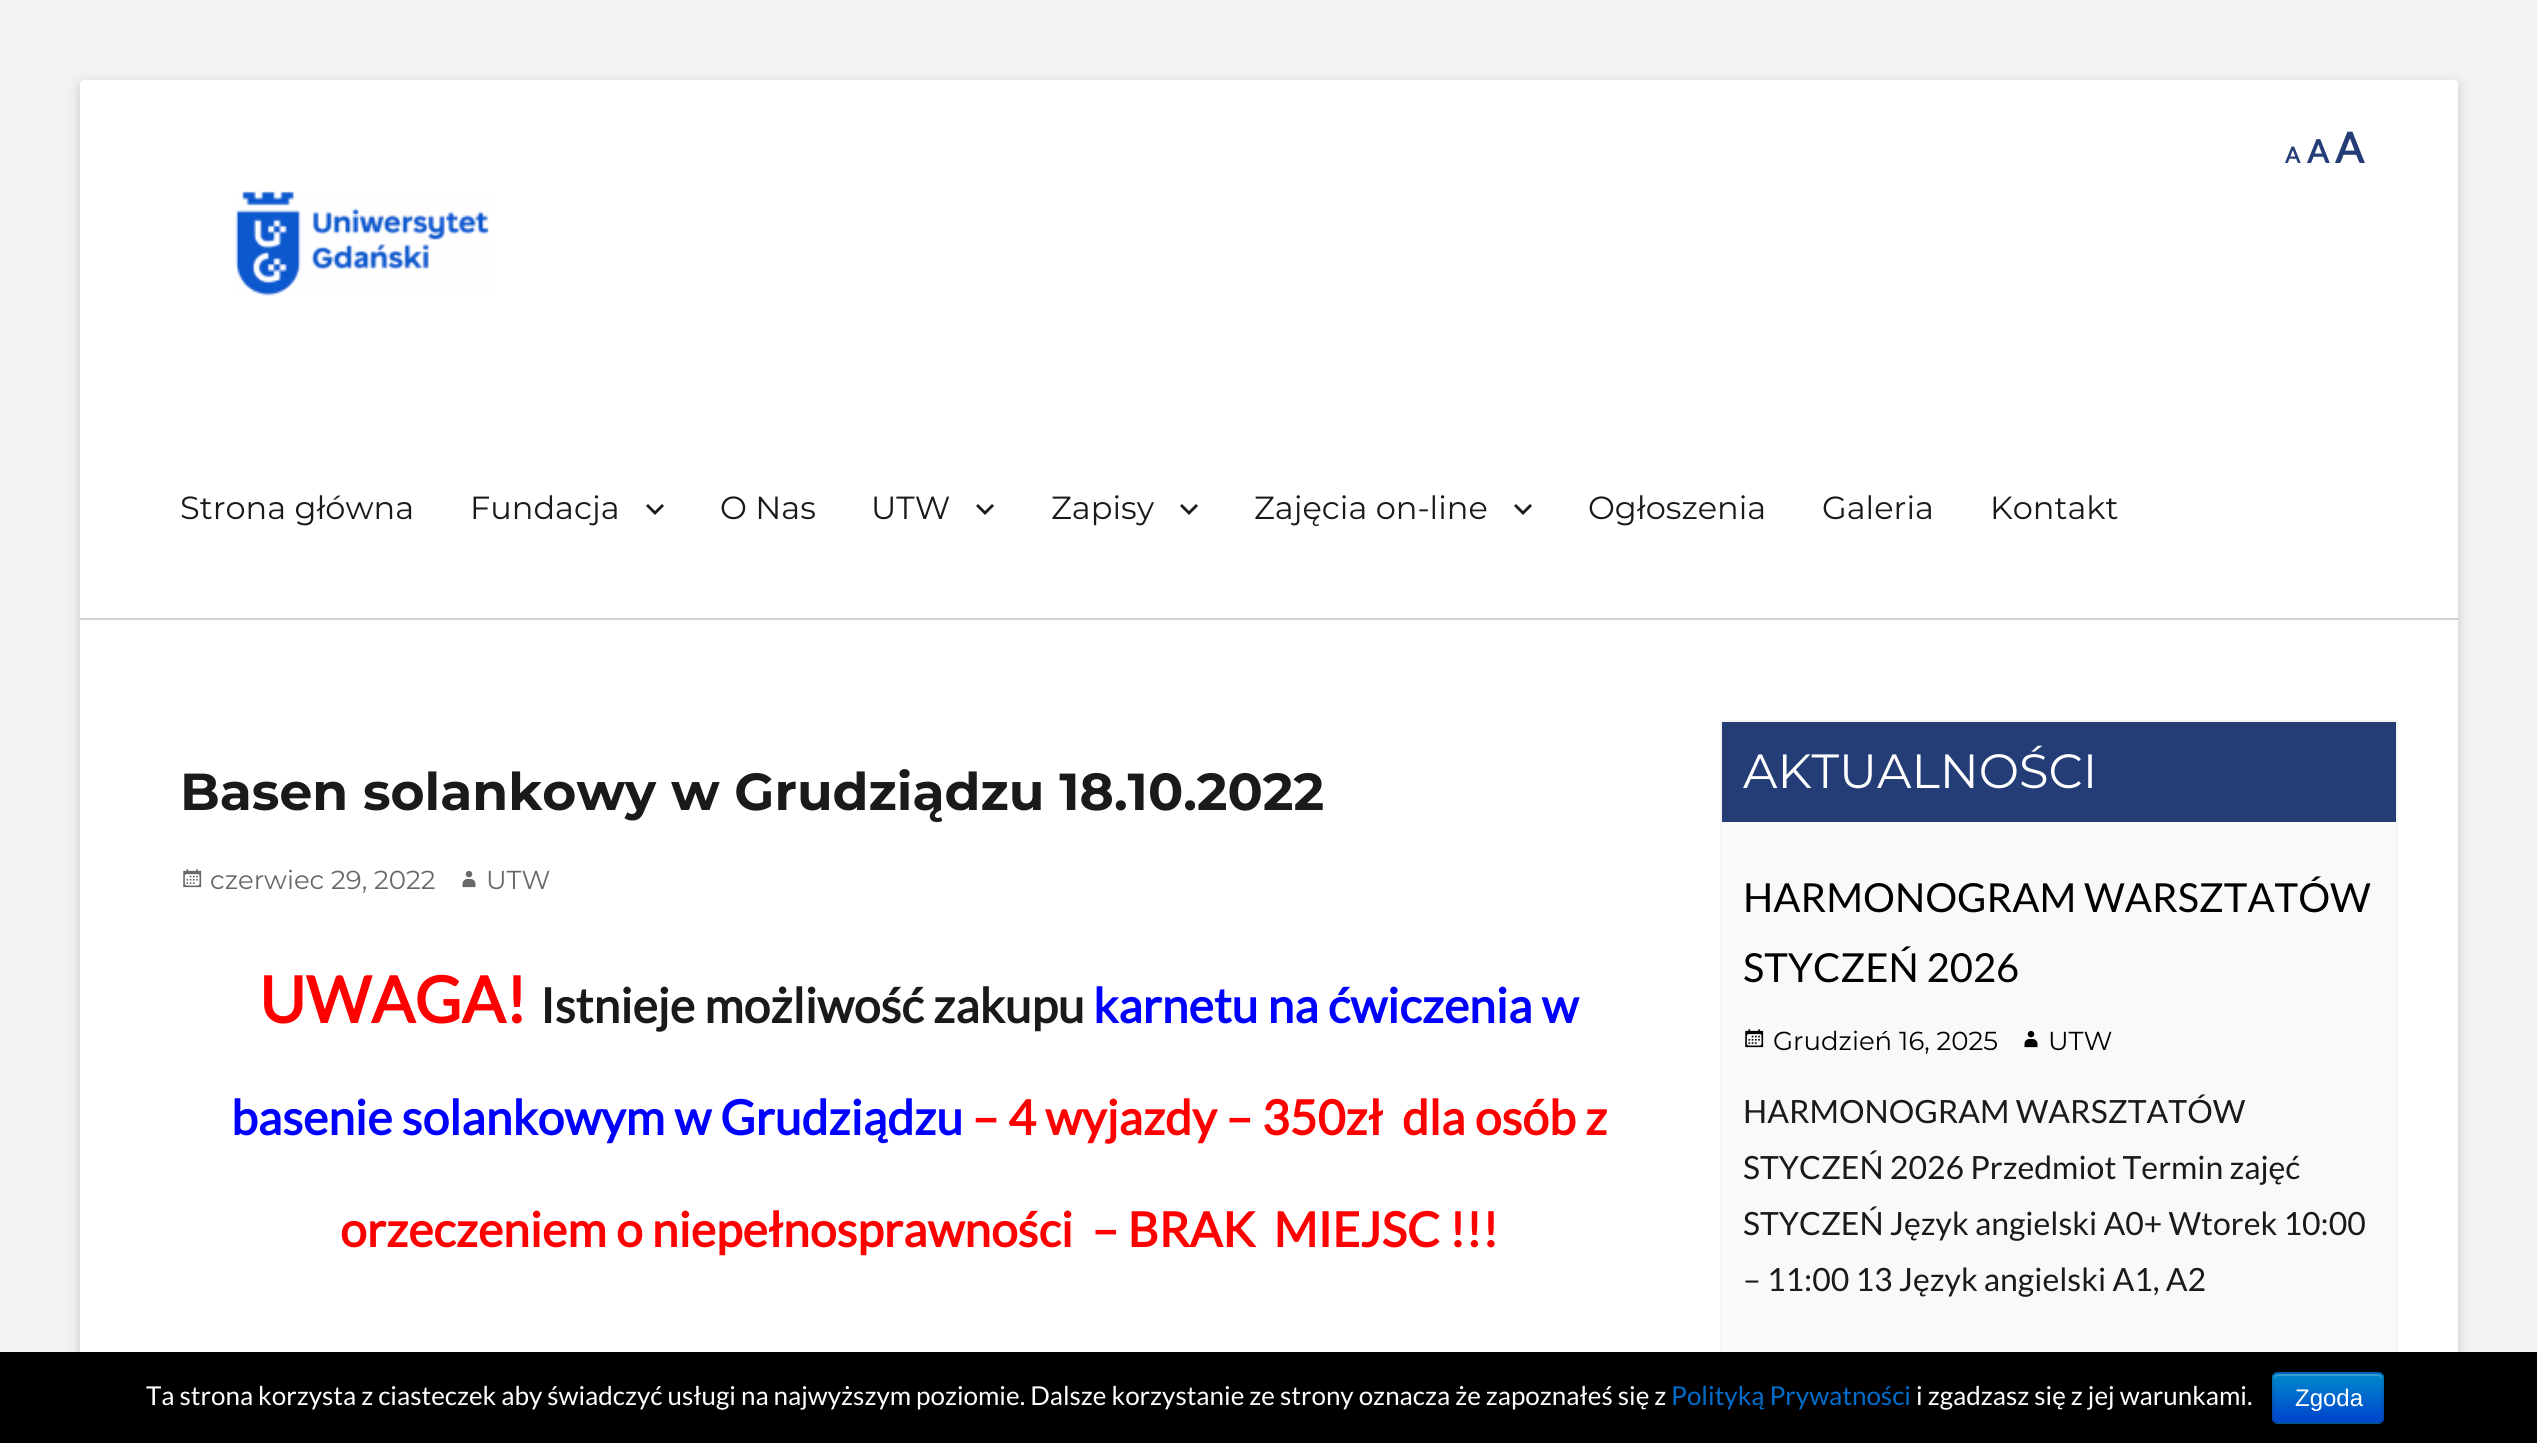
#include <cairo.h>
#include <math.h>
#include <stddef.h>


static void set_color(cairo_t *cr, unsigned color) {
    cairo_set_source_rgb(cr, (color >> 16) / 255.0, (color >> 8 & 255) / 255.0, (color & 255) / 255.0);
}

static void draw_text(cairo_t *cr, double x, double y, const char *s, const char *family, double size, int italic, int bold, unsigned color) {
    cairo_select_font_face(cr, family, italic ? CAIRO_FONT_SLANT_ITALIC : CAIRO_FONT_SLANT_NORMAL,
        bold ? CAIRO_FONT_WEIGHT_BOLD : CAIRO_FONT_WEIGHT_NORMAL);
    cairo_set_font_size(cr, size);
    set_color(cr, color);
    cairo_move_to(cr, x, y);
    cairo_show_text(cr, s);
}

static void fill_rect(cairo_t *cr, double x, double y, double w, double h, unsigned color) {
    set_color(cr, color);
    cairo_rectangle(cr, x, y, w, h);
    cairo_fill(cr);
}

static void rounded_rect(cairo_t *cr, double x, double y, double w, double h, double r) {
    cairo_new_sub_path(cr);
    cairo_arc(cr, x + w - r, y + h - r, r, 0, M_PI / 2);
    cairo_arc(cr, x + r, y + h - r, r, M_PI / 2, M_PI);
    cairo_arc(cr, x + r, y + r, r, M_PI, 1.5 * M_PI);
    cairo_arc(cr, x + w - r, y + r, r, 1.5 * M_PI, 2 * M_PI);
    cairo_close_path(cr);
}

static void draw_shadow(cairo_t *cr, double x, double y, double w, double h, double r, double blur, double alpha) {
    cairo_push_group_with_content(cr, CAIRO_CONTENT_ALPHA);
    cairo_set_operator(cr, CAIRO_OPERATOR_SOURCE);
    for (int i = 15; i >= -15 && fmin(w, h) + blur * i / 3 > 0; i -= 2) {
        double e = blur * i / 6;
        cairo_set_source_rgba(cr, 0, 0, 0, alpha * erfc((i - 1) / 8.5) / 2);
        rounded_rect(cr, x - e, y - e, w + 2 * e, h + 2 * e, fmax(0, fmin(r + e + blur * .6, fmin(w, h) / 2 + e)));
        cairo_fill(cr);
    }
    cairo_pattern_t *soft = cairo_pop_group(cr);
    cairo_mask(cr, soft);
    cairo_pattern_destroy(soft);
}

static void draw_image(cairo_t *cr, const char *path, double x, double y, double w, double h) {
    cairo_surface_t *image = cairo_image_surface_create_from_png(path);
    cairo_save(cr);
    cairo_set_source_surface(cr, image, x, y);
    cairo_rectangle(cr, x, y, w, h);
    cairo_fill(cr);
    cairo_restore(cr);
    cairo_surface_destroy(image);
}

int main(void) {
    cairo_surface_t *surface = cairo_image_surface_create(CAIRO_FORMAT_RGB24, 2537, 1443);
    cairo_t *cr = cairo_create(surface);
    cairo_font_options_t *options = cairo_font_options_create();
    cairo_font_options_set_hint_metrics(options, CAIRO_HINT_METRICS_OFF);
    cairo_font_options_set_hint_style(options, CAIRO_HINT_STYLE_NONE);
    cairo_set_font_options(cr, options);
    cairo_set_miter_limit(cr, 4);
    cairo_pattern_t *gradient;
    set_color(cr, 0xF2F2F2);
    cairo_paint(cr);
    set_color(cr, 0x646464);
    draw_shadow(cr, 80, 84, 2378, 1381, 4, 6, 0.3);
    set_color(cr, 0xFFFFFF);
    rounded_rect(cr, 80, 80, 2378, 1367, 4);
    cairo_fill(cr);
    draw_text(cr, 2285, 163, "A", "Lato", 22, 0, 1, 0x243D76);
    draw_text(cr, 2307, 163, "A", "Lato", 32, 0, 1, 0x243D76);
    draw_text(cr, 2335, 163, "A", "Lato", 42, 0, 1, 0x243D76);
    fill_rect(cr, 80, 618, 2378, 2, 0xD1D1D1);
    draw_image(cr, "assets/img1.png", 235, 191, 255, 105);
    draw_text(cr, 180, 519, "Strona główna", "Montserrat", 32, 0, 0, 0x1A1A1A);
    draw_text(cr, 470, 519, "Fundacja", "Montserrat", 32, 0, 0, 0x1A1A1A);
    cairo_new_path(cr);
    cairo_move_to(cr, 662, 504);
    cairo_line_to(cr, 664, 506);
    cairo_line_to(cr, 655, 515);
    cairo_line_to(cr, 646, 506);
    cairo_line_to(cr, 648, 504);
    cairo_line_to(cr, 655, 511);
    cairo_close_path(cr);
    cairo_fill(cr);
    draw_text(cr, 720, 519, "O Nas", "Montserrat", 32, 0, 0, 0x1A1A1A);
    draw_text(cr, 871, 519, "UTW", "Montserrat", 32, 0, 0, 0x1A1A1A);
    cairo_new_path(cr);
    cairo_move_to(cr, 992, 504);
    cairo_line_to(cr, 994, 506);
    cairo_line_to(cr, 985, 515);
    cairo_line_to(cr, 976, 506);
    cairo_line_to(cr, 978, 504);
    cairo_line_to(cr, 985, 511);
    cairo_close_path(cr);
    cairo_fill(cr);
    draw_text(cr, 1051, 519, "Zapisy", "Montserrat", 32, 0, 0, 0x1A1A1A);
    cairo_new_path(cr);
    cairo_move_to(cr, 1196, 504);
    cairo_line_to(cr, 1198, 506);
    cairo_line_to(cr, 1189, 515);
    cairo_line_to(cr, 1180, 506);
    cairo_line_to(cr, 1182, 504);
    cairo_line_to(cr, 1189, 511);
    cairo_close_path(cr);
    cairo_fill(cr);
    draw_text(cr, 1254, 519, "Zajęcia on-line", "Montserrat", 32, 0, 0, 0x1A1A1A);
    cairo_new_path(cr);
    cairo_move_to(cr, 1530, 504);
    cairo_line_to(cr, 1532, 506);
    cairo_line_to(cr, 1523, 515);
    cairo_line_to(cr, 1514, 506);
    cairo_line_to(cr, 1516, 504);
    cairo_line_to(cr, 1523, 511);
    cairo_close_path(cr);
    cairo_fill(cr);
    draw_text(cr, 1588, 519, "Ogłoszenia", "Montserrat", 32, 0, 0, 0x1A1A1A);
    draw_text(cr, 1822, 519, "Galeria", "Montserrat", 32, 0, 0, 0x1A1A1A);
    draw_text(cr, 1990, 519, "Kontakt", "Montserrat", 32, 0, 0, 0x1A1A1A);
    draw_text(cr, 180, 810, "Basen solankowy w Grudziądzu 18.10.2022", "Montserrat", 52, 0, 1, 0x1A1A1A);
    draw_image(cr, "assets/img2.png", 183, 869, 19, 19);
    draw_text(cr, 210, 889, "czerwiec 29, 2022", "Montserrat", 26, 0, 0, 0x686868);
    draw_image(cr, "assets/img3.png", 462, 870, 14, 18);
    draw_text(cr, 486, 889, "UTW", "Montserrat", 26, 0, 0, 0x686868);
    draw_text(cr, 259, 1023, "UWAGA!", "Lato", 64, 0, 1, 0xFF0000);
    draw_text(cr, 540, 1023, "Istnieje możliwość zakupu", "Lato", 48, 0, 1, 0x1A1A1A);
    draw_text(cr, 1093, 1023, "karnetu na ćwiczenia w", "Lato", 48, 0, 1, 0x0000FF);
    draw_text(cr, 231, 1135, "basenie solankowym w Grudziądzu", "Lato", 48, 0, 1, 0x0000FF);
    draw_text(cr, 972, 1135, "– 4 wyjazdy – 350zł", "Lato", 48, 0, 1, 0xFF0000);
    draw_text(cr, 1402, 1135, "dla osób z", "Lato", 48, 0, 1, 0xFF0000);
    draw_text(cr, 340, 1247, "orzeczeniem o niepełnosprawności  – BRAK  MIEJSC !!!", "Lato", 48, 0, 1, 0xFF0000);
    fill_rect(cr, 1722, 822, 674, 530, 0xF9F9F9);
    cairo_rectangle(cr, 1721, 721, 676, 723);
    set_color(cr, 0xF6F6F6);
    cairo_stroke(cr);
    fill_rect(cr, 1722, 722, 674, 100, 0x243D76);
    draw_text(cr, 1743, 788, "AKTUALNOŚCI", "Montserrat", 48, 0, 0, 0xFFFFFF);
    draw_text(cr, 1743, 912, "HARMONOGRAM WARSZTATÓW", "Lato", 40, 0, 0, 0x000000);
    draw_text(cr, 1743, 982, "STYCZEŃ 2026", "Lato", 40, 0, 0, 0x000000);
    draw_image(cr, "assets/img4.png", 1745, 1029, 19, 19);
    draw_text(cr, 1773, 1050, "Grudzień 16, 2025", "Montserrat", 26, 0, 0, 0x000000);
    draw_image(cr, "assets/img5.png", 2024, 1030, 14, 18);
    draw_text(cr, 2048, 1050, "UTW", "Montserrat", 26, 0, 0, 0x000000);
    draw_text(cr, 1743, 1123, "HARMONOGRAM WARSZTATÓW", "Lato", 32, 0, 0, 0x1A1A1A);
    draw_text(cr, 1743, 1179, "STYCZEŃ 2026 Przedmiot Termin zajęć", "Lato", 32, 0, 0, 0x1A1A1A);
    draw_text(cr, 1743, 1235, "STYCZEŃ Język angielski A0+ Wtorek 10:00", "Lato", 32, 0, 0, 0x1A1A1A);
    draw_text(cr, 1743, 1291, "– 11:00 13 Język angielski A1, A2", "Lato", 32, 0, 0, 0x1A1A1A);
    fill_rect(cr, 0, 1352, 2537, 91, 0x000000);
    draw_text(cr, 146, 1405, "Ta strona korzysta z ciasteczek aby świadczyć usługi na najwyższym poziomie. Dalsze korzystanie ze strony oznacza że zapoznałeś się z", "Lato", 26, 0, 0, 0xFFFFFF);
    draw_text(cr, 1671, 1405, "Polityką Prywatności", "Lato", 26, 0, 0, 0x006DCC);
    draw_text(cr, 1916, 1405, "i zgadzasz się z jej warunkami.", "Lato", 26, 0, 0, 0xFFFFFF);
    set_color(cr, 0x006DCC);
    rounded_rect(cr, 2272, 1372, 112, 52, 6);
    cairo_fill(cr);
    cairo_save(cr);
    rounded_rect(cr, 2272, 1372, 112, 52, 6);
    cairo_clip(cr);
    gradient = cairo_pattern_create_linear(2328, 1374, 2328, 1422);
    cairo_pattern_add_color_stop_rgba(gradient, 0, 0, 0.533, 0.8, 1);
    cairo_pattern_add_color_stop_rgba(gradient, 1, 0, 0.267, 0.8, 1);
    cairo_set_source(cr, gradient);
    cairo_pattern_destroy(gradient);
    cairo_rectangle(cr, 2272, 1374, 112, 48);
    cairo_fill(cr);
    cairo_restore(cr);
    cairo_set_source_rgba(cr, 1, 1, 1, 0.2);
    cairo_new_path(cr);
    cairo_move_to(cr, 2278, 1376);
    cairo_line_to(cr, 2378, 1376);
    cairo_curve_to(cr, 2380, 1376, 2382, 1378, 2382, 1380);
    cairo_line_to(cr, 2382, 1378);
    cairo_curve_to(cr, 2382, 1376, 2380, 1374, 2378, 1374);
    cairo_line_to(cr, 2278, 1374);
    cairo_curve_to(cr, 2276, 1374, 2274, 1376, 2274, 1378);
    cairo_line_to(cr, 2274, 1380);
    cairo_curve_to(cr, 2274, 1378, 2276, 1376, 2278, 1376);
    cairo_close_path(cr);
    cairo_fill(cr);
    cairo_new_path(cr);
    cairo_move_to(cr, 2381.5, 1421.5);
    cairo_curve_to(cr, 2380.5, 1422.5, 2379.5, 1423, 2378, 1423);
    cairo_line_to(cr, 2278, 1423);
    cairo_curve_to(cr, 2276.5, 1423, 2275.5, 1422.5, 2274.5, 1421.5);
    cairo_set_source_rgba(cr, 0, 0, 0, 0.25);
    cairo_stroke(cr);
    cairo_new_path(cr);
    cairo_move_to(cr, 2274.5, 1421.5);
    cairo_curve_to(cr, 2272, 1419, 2273, 1414, 2273, 1411.5);
    cairo_line_to(cr, 2273, 1398);
    cairo_curve_to(cr, 2273, 1370.5, 2268, 1373, 2294.5, 1373);
    cairo_line_to(cr, 2361.5, 1373);
    cairo_curve_to(cr, 2388, 1373, 2383, 1370.5, 2383, 1398);
    cairo_line_to(cr, 2383, 1411.5);
    cairo_curve_to(cr, 2383, 1414, 2384, 1419, 2381.5, 1421.5);
    cairo_set_source_rgba(cr, 0, 0, 0, 0.1);
    cairo_stroke(cr);
    draw_text(cr, 2295, 1406, "Zgoda", "Liberation Sans", 24, 0, 0, 0xFFFFFF);
    cairo_surface_write_to_png(surface, "output.png");
    cairo_font_options_destroy(options);
    cairo_destroy(cr);
    cairo_surface_destroy(surface);
    return 0;
}
